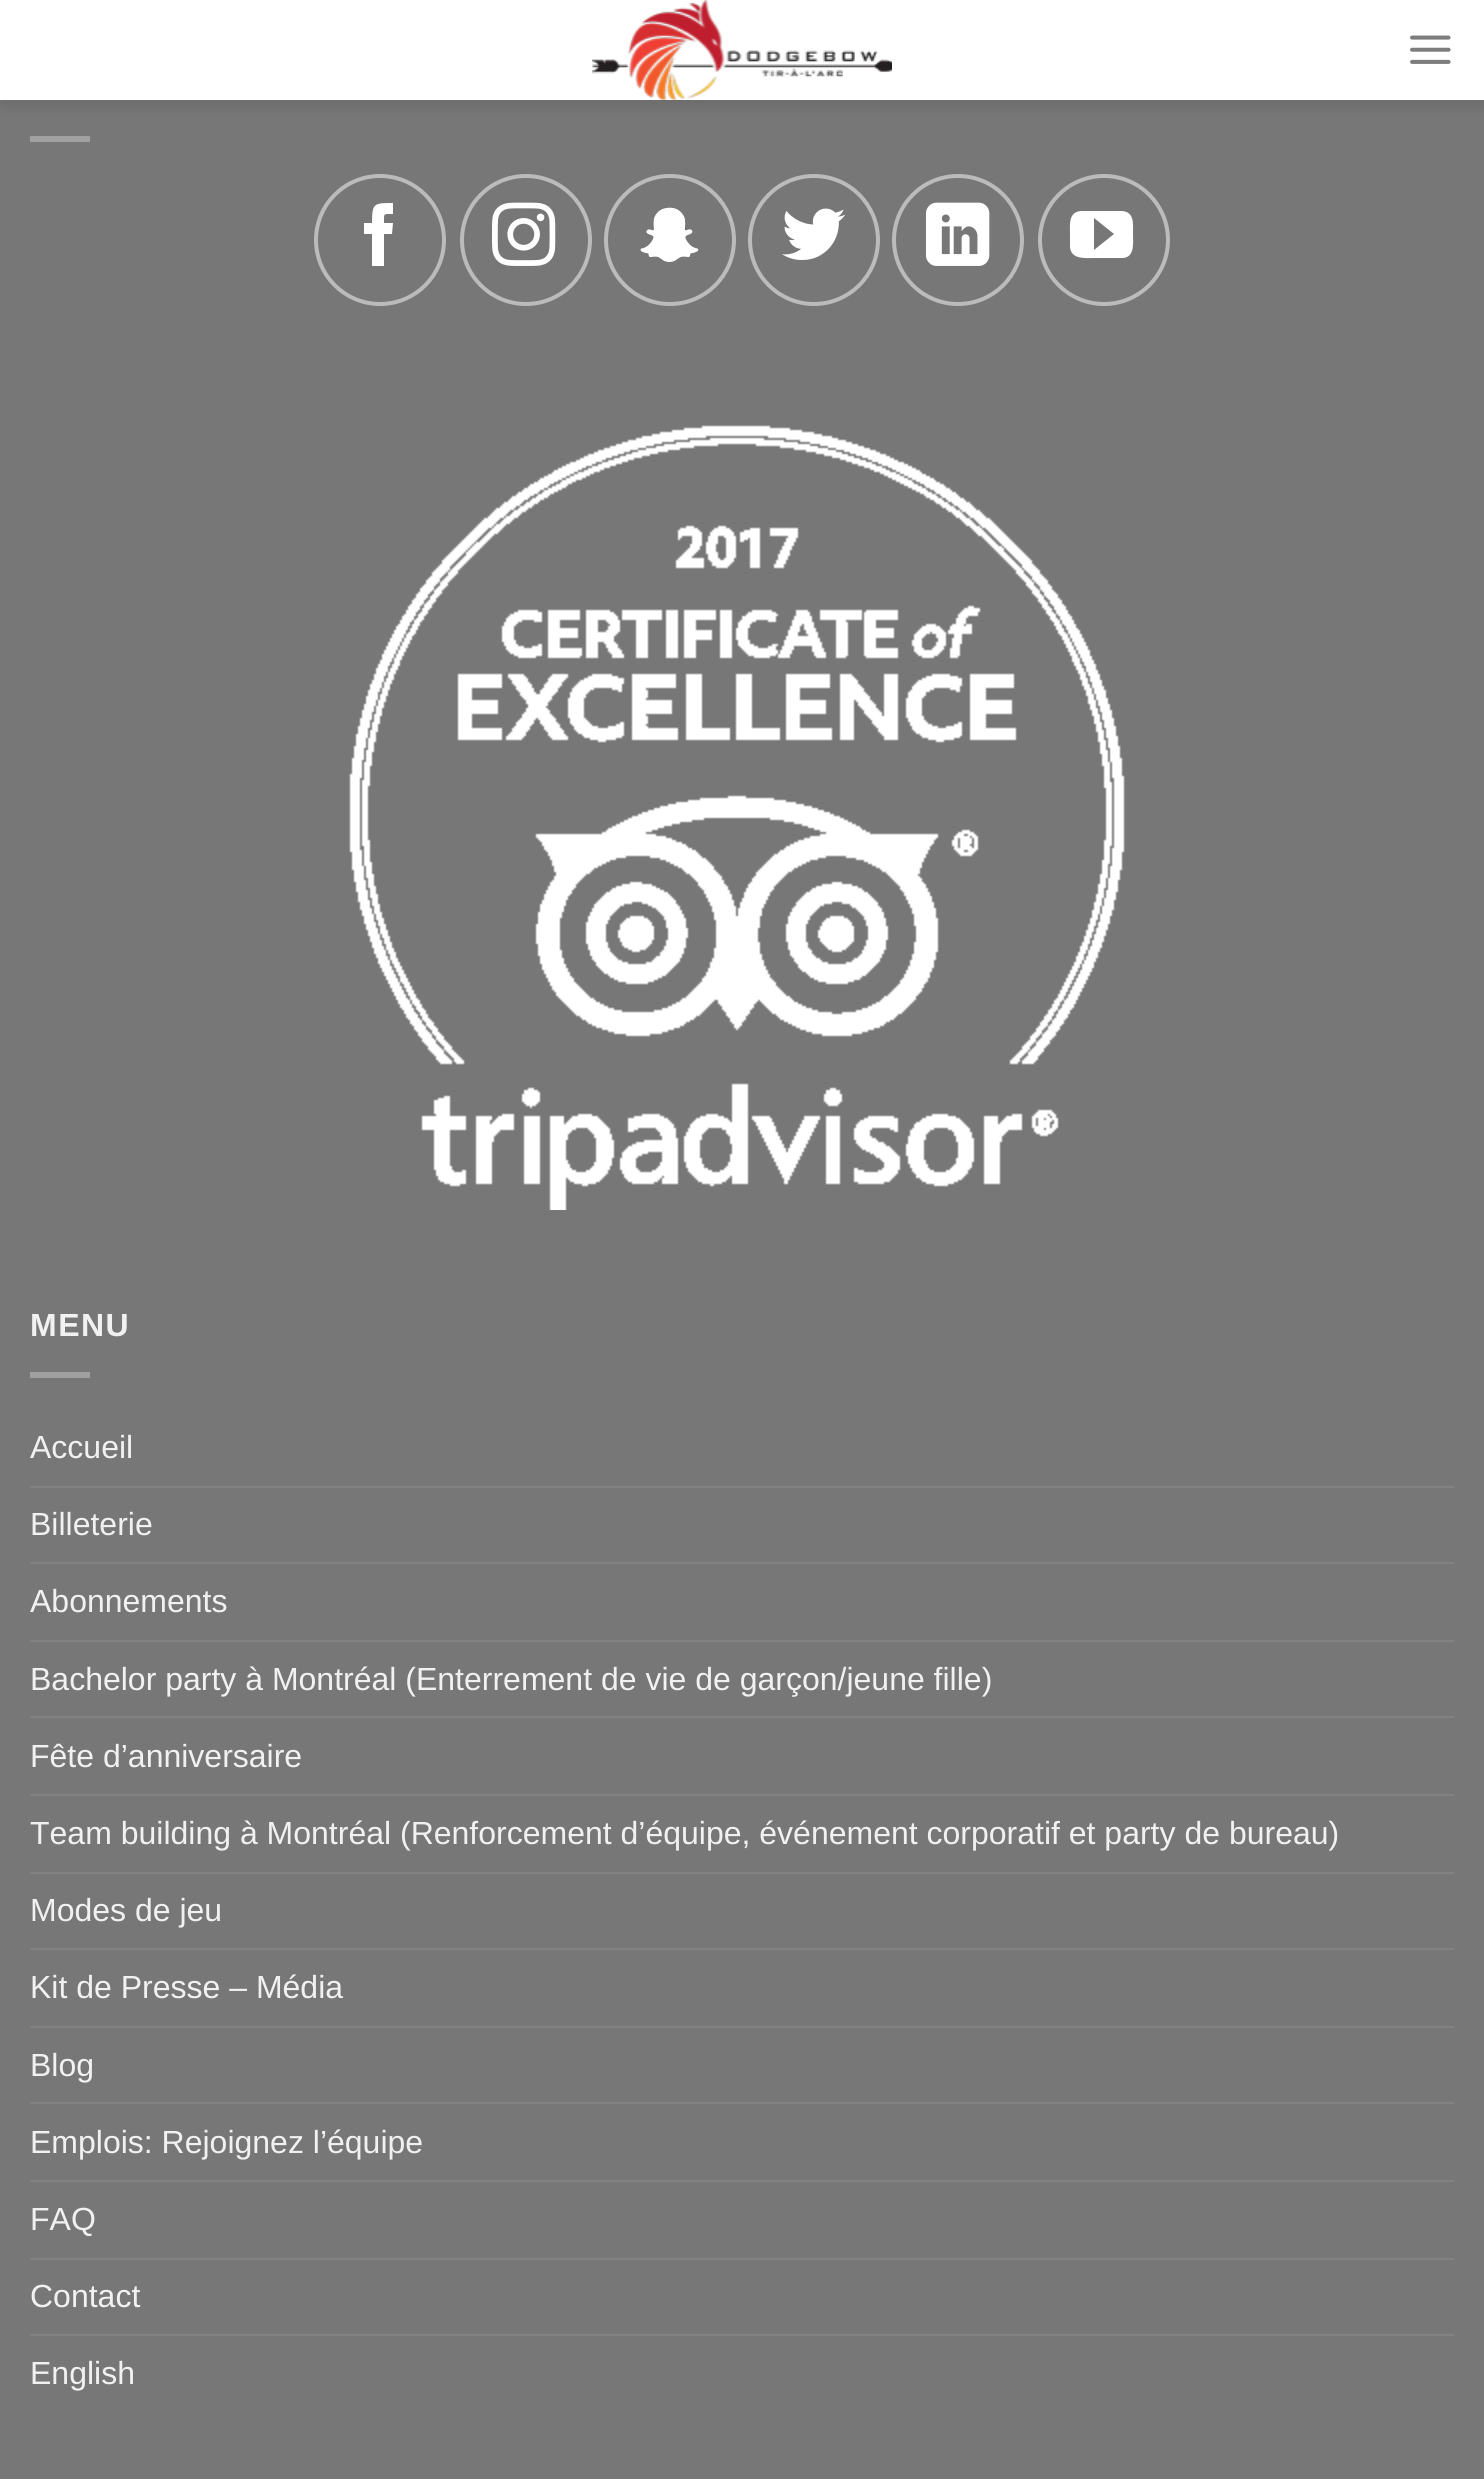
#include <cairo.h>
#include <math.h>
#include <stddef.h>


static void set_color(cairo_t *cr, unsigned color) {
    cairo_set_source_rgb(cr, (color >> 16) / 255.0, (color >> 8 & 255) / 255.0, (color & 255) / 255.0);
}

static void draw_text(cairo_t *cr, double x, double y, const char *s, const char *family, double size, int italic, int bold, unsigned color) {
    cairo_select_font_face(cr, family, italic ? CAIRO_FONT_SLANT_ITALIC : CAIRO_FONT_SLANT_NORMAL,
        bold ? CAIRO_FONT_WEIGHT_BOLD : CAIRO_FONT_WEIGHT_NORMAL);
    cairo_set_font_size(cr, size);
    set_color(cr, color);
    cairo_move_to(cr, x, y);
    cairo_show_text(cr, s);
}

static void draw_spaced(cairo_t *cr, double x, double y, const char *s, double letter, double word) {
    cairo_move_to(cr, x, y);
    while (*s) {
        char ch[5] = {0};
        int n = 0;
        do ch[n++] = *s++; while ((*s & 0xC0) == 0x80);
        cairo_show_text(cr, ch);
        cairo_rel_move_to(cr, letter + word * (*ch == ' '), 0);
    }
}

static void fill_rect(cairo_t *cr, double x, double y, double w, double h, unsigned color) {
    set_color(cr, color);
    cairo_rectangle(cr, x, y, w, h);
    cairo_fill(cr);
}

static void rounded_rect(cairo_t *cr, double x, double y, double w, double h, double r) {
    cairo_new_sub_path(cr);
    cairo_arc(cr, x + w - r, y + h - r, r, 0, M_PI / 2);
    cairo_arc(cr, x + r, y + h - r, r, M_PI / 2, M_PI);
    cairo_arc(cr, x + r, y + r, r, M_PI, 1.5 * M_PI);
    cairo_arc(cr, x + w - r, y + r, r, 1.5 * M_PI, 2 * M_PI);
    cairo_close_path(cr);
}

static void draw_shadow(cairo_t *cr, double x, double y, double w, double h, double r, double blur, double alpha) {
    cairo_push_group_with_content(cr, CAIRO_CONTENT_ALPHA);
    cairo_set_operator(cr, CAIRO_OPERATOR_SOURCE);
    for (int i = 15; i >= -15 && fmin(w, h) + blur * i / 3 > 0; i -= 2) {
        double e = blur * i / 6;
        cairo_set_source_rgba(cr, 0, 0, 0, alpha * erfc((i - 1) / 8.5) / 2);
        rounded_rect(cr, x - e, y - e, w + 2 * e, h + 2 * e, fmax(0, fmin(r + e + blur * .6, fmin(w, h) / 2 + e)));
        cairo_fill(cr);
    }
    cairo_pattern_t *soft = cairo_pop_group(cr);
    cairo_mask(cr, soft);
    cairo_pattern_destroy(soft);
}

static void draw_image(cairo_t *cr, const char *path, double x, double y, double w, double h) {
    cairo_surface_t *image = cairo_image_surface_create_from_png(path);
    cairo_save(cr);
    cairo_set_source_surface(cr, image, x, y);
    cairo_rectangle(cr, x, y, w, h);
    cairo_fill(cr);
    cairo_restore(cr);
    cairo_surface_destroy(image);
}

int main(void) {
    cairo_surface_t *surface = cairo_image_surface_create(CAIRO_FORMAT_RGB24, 1484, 2479);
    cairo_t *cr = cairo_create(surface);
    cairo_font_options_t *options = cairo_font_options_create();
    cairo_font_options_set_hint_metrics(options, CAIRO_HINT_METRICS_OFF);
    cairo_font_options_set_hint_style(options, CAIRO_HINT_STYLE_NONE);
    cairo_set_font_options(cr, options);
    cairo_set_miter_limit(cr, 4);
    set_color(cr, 0x777777);
    cairo_paint(cr);
    set_color(cr, 0x000000);
    draw_shadow(cr, 2, 2, 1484, 100, 0, 10, 0.15);
    fill_rect(cr, 0, 0, 1484, 100, 0xFFFFFF);
    draw_image(cr, "assets/img1.png", 592, 0, 300, 100);
    draw_image(cr, "assets/img2.png", 1410, 35, 41, 29);
    fill_rect(cr, 30, 136, 60, 6, 0xA0A0A0);
    cairo_arc(cr, 380, 240, 64, 0, 2 * M_PI);
    set_color(cr, 0xBBBBBB);
    cairo_set_line_width(cr, 4);
    cairo_stroke(cr);
    set_color(cr, 0xFFFFFF);
    cairo_new_path(cr);
    cairo_move_to(cr, 384, 266);
    cairo_line_to(cr, 372, 266);
    cairo_line_to(cr, 372, 234);
    cairo_line_to(cr, 364, 234);
    cairo_line_to(cr, 364, 223);
    cairo_line_to(cr, 372, 223);
    cairo_curve_to(cr, 372, 203, 374, 203, 393, 203);
    cairo_line_to(cr, 393, 214);
    cairo_curve_to(cr, 383, 214, 384, 213, 384, 223);
    cairo_line_to(cr, 393, 223);
    cairo_line_to(cr, 392, 234);
    cairo_line_to(cr, 384, 234);
    cairo_close_path(cr);
    cairo_fill(cr);
    cairo_arc(cr, 526, 240, 64, 0, 2 * M_PI);
    set_color(cr, 0xBBBBBB);
    cairo_stroke(cr);
    draw_image(cr, "assets/img3.png", 492, 202, 64, 64);
    cairo_arc(cr, 670, 240, 64, 0, 2 * M_PI);
    cairo_stroke(cr);
    draw_image(cr, "assets/img4.png", 640, 207, 59, 55);
    cairo_arc(cr, 814, 240, 64, 0, 2 * M_PI);
    cairo_stroke(cr);
    draw_image(cr, "assets/img5.png", 782, 208, 64, 52);
    cairo_arc(cr, 958, 240, 64, 0, 2 * M_PI);
    cairo_stroke(cr);
    draw_image(cr, "assets/img6.png", 926, 202, 64, 64);
    cairo_arc(cr, 1104, 240, 64, 0, 2 * M_PI);
    cairo_stroke(cr);
    set_color(cr, 0xFFFFFF);
    cairo_new_path(cr);
    cairo_move_to(cr, 1121, 211);
    cairo_line_to(cr, 1081, 211);
    cairo_curve_to(cr, 1068, 212, 1070, 225, 1070, 234);
    cairo_line_to(cr, 1070, 247);
    cairo_curve_to(cr, 1071, 260, 1086, 258, 1095, 258);
    cairo_line_to(cr, 1123, 258);
    cairo_curve_to(cr, 1135, 257, 1133, 243, 1133, 234);
    cairo_curve_to(cr, 1133, 225, 1135, 211, 1121, 211);
    cairo_close_path(cr);
    cairo_move_to(cr, 1094, 250);
    cairo_line_to(cr, 1094, 218);
    cairo_line_to(cr, 1114, 234);
    cairo_close_path(cr);
    cairo_fill(cr);
    draw_image(cr, "assets/img7.png", 349, 425, 776, 785);
    cairo_select_font_face(cr, "Liberation Sans", CAIRO_FONT_SLANT_NORMAL, CAIRO_FONT_WEIGHT_BOLD);
    cairo_set_font_size(cr, 32);
    set_color(cr, 0xF1F1F1);
    draw_spaced(cr, 30, 1336, "MENU", 1.5, 0);
    fill_rect(cr, 30, 1372, 60, 6, 0xA0A0A0);
    draw_text(cr, 30, 1458, "Accueil", "Liberation Sans", 32, 0, 0, 0xF1F1F1);
    fill_rect(cr, 30, 1486, 1424, 2, 0x828282);
    draw_text(cr, 30, 1535, "Billeterie", "Liberation Sans", 32, 0, 0, 0xF1F1F1);
    fill_rect(cr, 30, 1562, 1424, 2, 0x828282);
    draw_text(cr, 30, 1612, "Abonnements", "Liberation Sans", 32, 0, 0, 0xF1F1F1);
    fill_rect(cr, 30, 1640, 1424, 2, 0x828282);
    draw_text(cr, 30, 1690, "Bachelor party à Montréal (Enterrement de vie de garçon/jeune fille)", "Liberation Sans", 32, 0, 0, 0xF1F1F1);
    fill_rect(cr, 30, 1716, 1424, 2, 0x828282);
    draw_text(cr, 30, 1767, "Fête d’anniversaire", "Liberation Sans", 32, 0, 0, 0xF1F1F1);
    fill_rect(cr, 30, 1794, 1424, 2, 0x828282);
    draw_text(cr, 30, 1844, "Team building à Montréal (Renforcement d’équipe, événement corporatif et party de bureau)", "Liberation Sans", 32, 0, 0, 0xF1F1F1);
    fill_rect(cr, 30, 1872, 1424, 2, 0x828282);
    draw_text(cr, 30, 1921, "Modes de jeu", "Liberation Sans", 32, 0, 0, 0xF1F1F1);
    fill_rect(cr, 30, 1948, 1424, 2, 0x828282);
    draw_text(cr, 30, 1998, "Kit de Presse – Média", "Liberation Sans", 32, 0, 0, 0xF1F1F1);
    fill_rect(cr, 30, 2026, 1424, 2, 0x828282);
    draw_text(cr, 30, 2076, "Blog", "Liberation Sans", 32, 0, 0, 0xF1F1F1);
    fill_rect(cr, 30, 2102, 1424, 2, 0x828282);
    draw_text(cr, 30, 2153, "Emplois: Rejoignez l’équipe", "Liberation Sans", 32, 0, 0, 0xF1F1F1);
    fill_rect(cr, 30, 2180, 1424, 2, 0x828282);
    draw_text(cr, 30, 2230, "FAQ", "Liberation Sans", 32, 0, 0, 0xF1F1F1);
    fill_rect(cr, 30, 2258, 1424, 2, 0x828282);
    draw_text(cr, 30, 2307, "Contact", "Liberation Sans", 32, 0, 0, 0xF1F1F1);
    fill_rect(cr, 30, 2334, 1424, 2, 0x828282);
    draw_text(cr, 30, 2384, "English", "Liberation Sans", 32, 0, 0, 0xF1F1F1);
    cairo_surface_write_to_png(surface, "output.png");
    cairo_font_options_destroy(options);
    cairo_destroy(cr);
    cairo_surface_destroy(surface);
    return 0;
}
